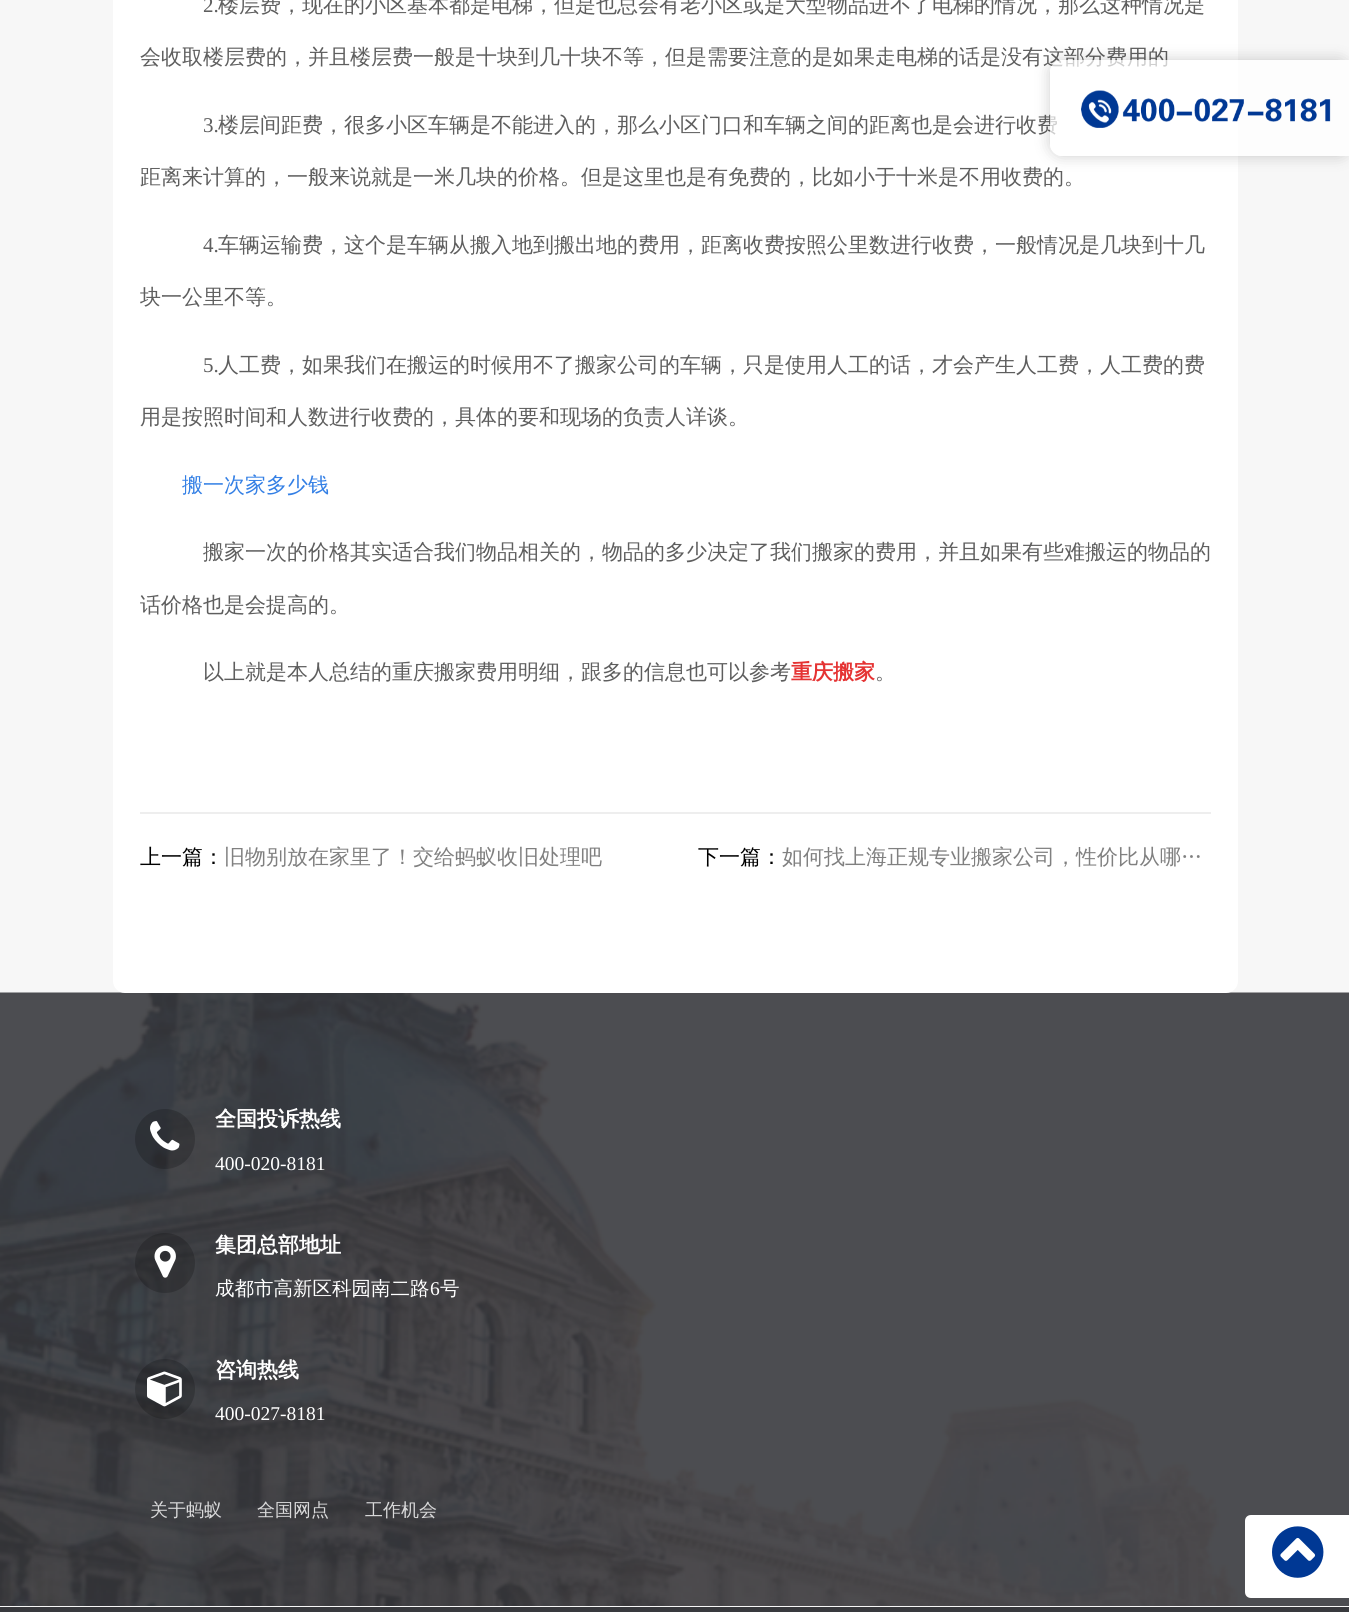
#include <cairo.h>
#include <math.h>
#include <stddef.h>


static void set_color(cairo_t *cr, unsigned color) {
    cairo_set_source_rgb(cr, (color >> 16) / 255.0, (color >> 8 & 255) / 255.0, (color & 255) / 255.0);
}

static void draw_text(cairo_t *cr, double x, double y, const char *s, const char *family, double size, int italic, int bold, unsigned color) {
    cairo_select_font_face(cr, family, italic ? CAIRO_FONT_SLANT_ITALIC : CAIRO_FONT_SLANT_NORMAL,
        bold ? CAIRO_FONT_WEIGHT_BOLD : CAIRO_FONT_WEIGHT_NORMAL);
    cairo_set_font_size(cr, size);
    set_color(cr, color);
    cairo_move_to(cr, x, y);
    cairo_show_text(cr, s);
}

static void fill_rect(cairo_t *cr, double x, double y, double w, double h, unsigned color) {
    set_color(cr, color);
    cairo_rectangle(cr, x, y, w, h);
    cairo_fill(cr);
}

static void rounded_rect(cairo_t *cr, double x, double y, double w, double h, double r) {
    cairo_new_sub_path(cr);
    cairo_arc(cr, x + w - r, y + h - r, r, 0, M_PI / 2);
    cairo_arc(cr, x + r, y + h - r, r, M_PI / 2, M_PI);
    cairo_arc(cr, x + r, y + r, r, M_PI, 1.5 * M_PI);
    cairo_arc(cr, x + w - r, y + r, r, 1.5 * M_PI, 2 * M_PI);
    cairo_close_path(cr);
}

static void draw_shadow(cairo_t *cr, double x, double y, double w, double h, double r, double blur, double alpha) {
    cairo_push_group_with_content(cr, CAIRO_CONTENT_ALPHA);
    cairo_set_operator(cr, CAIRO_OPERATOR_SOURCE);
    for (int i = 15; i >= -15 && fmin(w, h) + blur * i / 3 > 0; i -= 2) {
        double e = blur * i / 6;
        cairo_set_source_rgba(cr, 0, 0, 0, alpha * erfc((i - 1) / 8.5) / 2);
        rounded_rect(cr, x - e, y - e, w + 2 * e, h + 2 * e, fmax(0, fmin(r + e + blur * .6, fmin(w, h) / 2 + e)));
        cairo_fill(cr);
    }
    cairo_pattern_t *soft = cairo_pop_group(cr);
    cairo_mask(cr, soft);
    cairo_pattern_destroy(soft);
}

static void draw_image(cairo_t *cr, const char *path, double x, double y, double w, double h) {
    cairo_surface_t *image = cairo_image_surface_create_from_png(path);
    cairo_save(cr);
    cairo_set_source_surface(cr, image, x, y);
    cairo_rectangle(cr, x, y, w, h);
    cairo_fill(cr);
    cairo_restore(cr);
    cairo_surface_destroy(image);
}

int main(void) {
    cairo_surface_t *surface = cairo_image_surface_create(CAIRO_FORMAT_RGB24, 1349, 1612);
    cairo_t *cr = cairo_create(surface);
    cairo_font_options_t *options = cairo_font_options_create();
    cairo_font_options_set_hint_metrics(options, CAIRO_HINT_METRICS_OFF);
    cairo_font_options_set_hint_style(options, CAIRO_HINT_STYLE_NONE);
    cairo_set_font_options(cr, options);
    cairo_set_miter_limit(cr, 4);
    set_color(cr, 0xF7F7F7);
    cairo_paint(cr);
    draw_image(cr, "assets/img2.png", 0, 992, 1349, 614);
    set_color(cr, 0xFFFFFF);
    rounded_rect(cr, 113, -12, 1125, 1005, 12);
    cairo_fill(cr);
    draw_text(cr, 203, 12, "2.", "Liberation Serif", 21, 0, 0, 0x5E5E5E);
    draw_text(cr, 218, 12, "楼层费，现在的小区基本都是电梯，但是也总会有老小区或是大型物品进不了电梯的情况，那么这种情况是", "WenQuanYi Zen Hei Medium", 21, 0, 0, 0x5E5E5E);
    draw_text(cr, 140, 64, "会收取楼层费的，并且楼层费一般是十块到几十块不等，但是需要注意的是如果走电梯的话是没有这部分费用的", "WenQuanYi Zen Hei Medium", 21, 0, 0, 0x5E5E5E);
    draw_text(cr, 203, 132, "3.", "Liberation Serif", 21, 0, 0, 0x5E5E5E);
    draw_text(cr, 218, 132, "楼层间距费，很多小区车辆是不能进入的，那么小区门口和车辆之间的距离也是会进行收费", "WenQuanYi Zen Hei Medium", 21, 0, 0, 0x5E5E5E);
    draw_text(cr, 140, 184, "距离来计算的，一般来说就是一米几块的价格。但是这里也是有免费的，比如小于十米是不用收费的。", "WenQuanYi Zen Hei Medium", 21, 0, 0, 0x5E5E5E);
    draw_text(cr, 203, 252, "4.", "Liberation Serif", 21, 0, 0, 0x5E5E5E);
    draw_text(cr, 218, 252, "车辆运输费，这个是车辆从搬入地到搬出地的费用，距离收费按照公里数进行收费，一般情况是几块到十几", "WenQuanYi Zen Hei Medium", 21, 0, 0, 0x5E5E5E);
    cairo_save(cr);
    cairo_rectangle(cr, 140, 0, 1071, 782);
    cairo_clip(cr);
    draw_text(cr, 140, 304, "块一公里不等。", "WenQuanYi Zen Hei Medium", 21, 0, 0, 0x5E5E5E);
    cairo_restore(cr);
    draw_text(cr, 203, 372, "5.", "Liberation Serif", 21, 0, 0, 0x5E5E5E);
    draw_text(cr, 218, 372, "人工费，如果我们在搬运的时候用不了搬家公司的车辆，只是使用人工的话，才会产生人工费，人工费的费", "WenQuanYi Zen Hei Medium", 21, 0, 0, 0x5E5E5E);
    draw_text(cr, 140, 424, "用是按照时间和人数进行收费的，具体的要和现场的负责人详谈。", "WenQuanYi Zen Hei Medium", 21, 0, 0, 0x5E5E5E);
    draw_text(cr, 182, 492, "搬一次家多少钱", "WenQuanYi Zen Hei Medium", 21, 0, 0, 0x337FE5);
    draw_text(cr, 203, 559, "搬家一次的价格其实适合我们物品相关的，物品的多少决定了我们搬家的费用，并且如果有些难搬运的物品的", "WenQuanYi Zen Hei Medium", 21, 0, 0, 0x5E5E5E);
    draw_text(cr, 140, 612, "话价格也是会提高的。", "WenQuanYi Zen Hei Medium", 21, 0, 0, 0x5E5E5E);
    draw_text(cr, 203, 679, "以上就是本人总结的重庆搬家费用明细，跟多的信息也可以参考", "WenQuanYi Zen Hei Medium", 21, 0, 0, 0x5E5E5E);
    draw_text(cr, 791, 679, "重庆搬家", "WenQuanYi Zen Hei", 21, 0, 1, 0xE53333);
    draw_text(cr, 875, 679, "。", "WenQuanYi Zen Hei Medium", 21, 0, 0, 0x5E5E5E);
    fill_rect(cr, 140, 812, 1071, 2, 0xEEEEEE);
    draw_text(cr, 140, 864, "上一篇：", "WenQuanYi Zen Hei Medium", 21, 0, 0, 0x000000);
    draw_text(cr, 224, 864, "旧物别放在家里了！交给蚂蚁收旧处理吧", "WenQuanYi Zen Hei Medium", 21, 0, 0, 0x808080);
    draw_text(cr, 698, 864, "下一篇：", "WenQuanYi Zen Hei Medium", 21, 0, 0, 0x000000);
    draw_text(cr, 782, 864, "如何找上海正规专业搬家公司，性价比从哪…", "WenQuanYi Zen Hei Medium", 21, 0, 0, 0x808080);
    cairo_save(cr);
    cairo_set_fill_rule(cr, CAIRO_FILL_RULE_EVEN_ODD);
    cairo_new_path(cr);
    cairo_move_to(cr, 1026, 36);
    cairo_line_to(cr, 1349, 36);
    cairo_line_to(cr, 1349, 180);
    cairo_line_to(cr, 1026, 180);
    cairo_close_path(cr);
    cairo_move_to(cr, 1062, 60);
    cairo_line_to(cr, 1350, 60);
    cairo_line_to(cr, 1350, 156);
    cairo_line_to(cr, 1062, 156);
    cairo_curve_to(cr, 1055.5, 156, 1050, 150.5, 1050, 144);
    cairo_line_to(cr, 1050, 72);
    cairo_curve_to(cr, 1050, 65.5, 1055.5, 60, 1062, 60);
    cairo_close_path(cr);
    cairo_clip(cr);
    set_color(cr, 0x000000);
    draw_shadow(cr, 1050, 60, 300, 96, 12, 7.5, 0.2);
    cairo_restore(cr);
    cairo_set_source_rgba(cr, 1, 1, 1, 0.7);
    cairo_new_path(cr);
    cairo_move_to(cr, 1062, 60);
    cairo_line_to(cr, 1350, 60);
    cairo_line_to(cr, 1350, 156);
    cairo_line_to(cr, 1062, 156);
    cairo_curve_to(cr, 1055.5, 156, 1050, 150.5, 1050, 144);
    cairo_line_to(cr, 1050, 72);
    cairo_curve_to(cr, 1050, 65.5, 1055.5, 60, 1062, 60);
    cairo_close_path(cr);
    cairo_fill(cr);
    draw_image(cr, "assets/img1.png", 1081, 90, 250, 38);
    cairo_set_source_rgba(cr, 0, 0, 0, 0.2);
    cairo_arc(cr, 165, 1139, 30, 0, 2 * M_PI);
    cairo_fill(cr);
    draw_image(cr, "assets/img3.png", 150, 1121, 30, 30);
    draw_text(cr, 215, 1126, "全国投诉热线", "WenQuanYi Zen Hei", 21, 0, 1, 0xFFFFFF);
    draw_text(cr, 215, 1170, "400-020-8181", "Liberation Serif", 19.5, 0, 0, 0xFFFFFF);
    cairo_set_source_rgba(cr, 0, 0, 0, 0.2);
    cairo_new_path(cr);
    cairo_arc(cr, 165, 1263, 30, 0, 2 * M_PI);
    cairo_fill(cr);
    draw_image(cr, "assets/img4.png", 154, 1245, 22, 33);
    draw_text(cr, 215, 1252, "集团总部地址", "WenQuanYi Zen Hei", 21, 0, 1, 0xFFFFFF);
    draw_text(cr, 215, 1295, "成都市高新区科园南二路", "WenQuanYi Zen Hei Medium", 19.5, 0, 0, 0xFFFFFF);
    draw_text(cr, 430, 1295, "6", "Liberation Serif", 19.5, 0, 0, 0xFFFFFF);
    draw_text(cr, 440, 1295, "号", "WenQuanYi Zen Hei Medium", 19.5, 0, 0, 0xFFFFFF);
    cairo_set_source_rgba(cr, 0, 0, 0, 0.2);
    cairo_new_path(cr);
    cairo_arc(cr, 165, 1389, 30, 0, 2 * M_PI);
    cairo_fill(cr);
    draw_image(cr, "assets/img5.png", 147, 1371, 35, 36);
    draw_text(cr, 215, 1377, "咨询热线", "WenQuanYi Zen Hei", 21, 0, 1, 0xFFFFFF);
    draw_text(cr, 215, 1420, "400-027-8181", "Liberation Serif", 19.5, 0, 0, 0xFFFFFF);
    draw_text(cr, 150, 1516, "关于蚂蚁", "WenQuanYi Zen Hei Medium", 18, 0, 0, 0xD9D9DA);
    draw_text(cr, 257, 1516, "全国网点", "WenQuanYi Zen Hei Medium", 18, 0, 0, 0xD9D9DA);
    draw_text(cr, 365, 1516, "工作机会", "WenQuanYi Zen Hei Medium", 18, 0, 0, 0xD9D9DA);
    set_color(cr, 0xFFFFFF);
    cairo_new_path(cr);
    cairo_move_to(cr, 1251, 1515);
    cairo_line_to(cr, 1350, 1515);
    cairo_line_to(cr, 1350, 1598);
    cairo_line_to(cr, 1251, 1598);
    cairo_curve_to(cr, 1247.5, 1598, 1245, 1595.5, 1245, 1592);
    cairo_line_to(cr, 1245, 1521);
    cairo_curve_to(cr, 1245, 1517.5, 1247.5, 1515, 1251, 1515);
    cairo_close_path(cr);
    cairo_fill(cr);
    draw_image(cr, "assets/img6.png", 1272, 1526, 52, 52);
    fill_rect(cr, 0, 1607, 1349, 5, 0x38393D);
    cairo_surface_write_to_png(surface, "output.png");
    cairo_font_options_destroy(options);
    cairo_destroy(cr);
    cairo_surface_destroy(surface);
    return 0;
}
